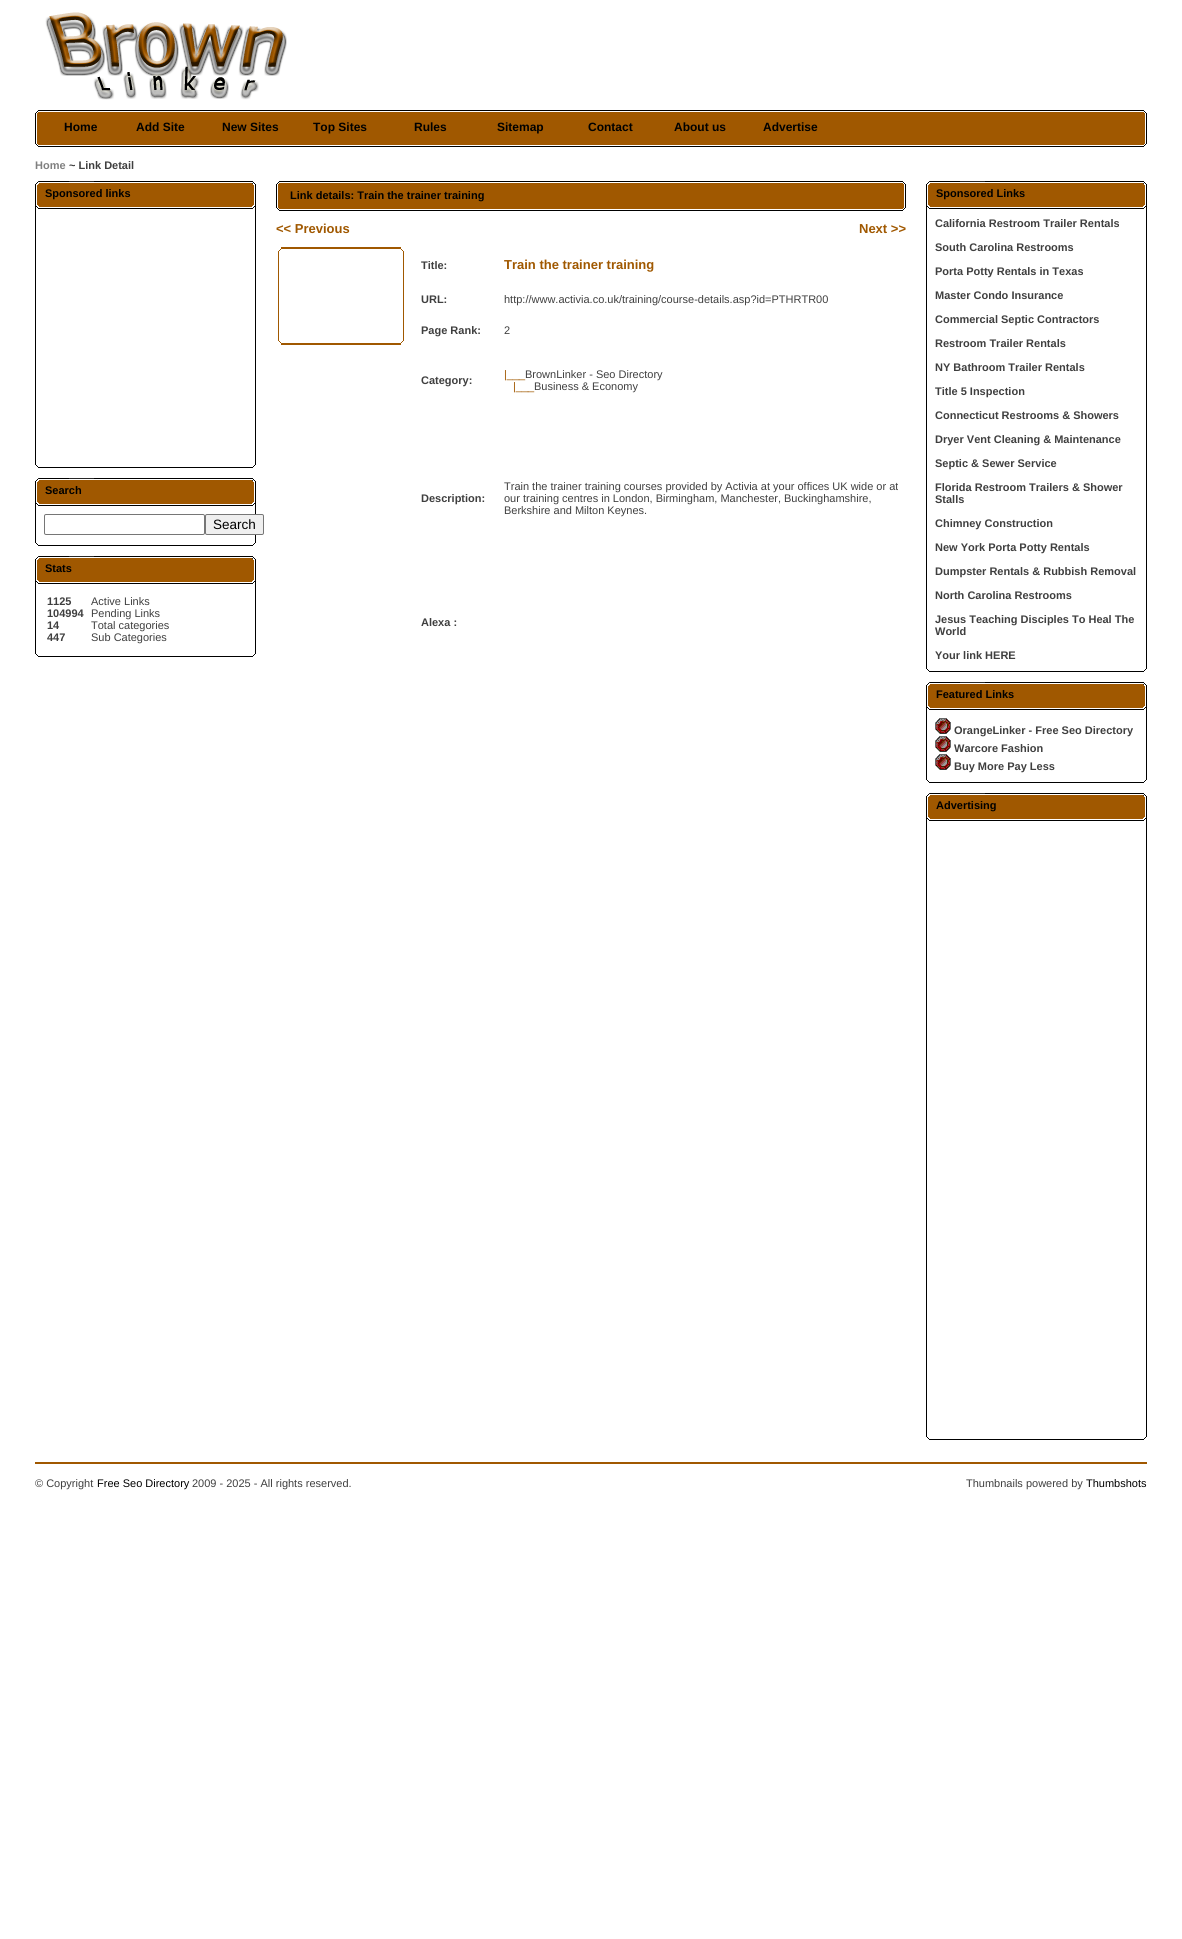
#include <cairo.h>
#include <math.h>
#include <stddef.h>


static void set_color(cairo_t *cr, unsigned color) {
    cairo_set_source_rgb(cr, (color >> 16) / 255.0, (color >> 8 & 255) / 255.0, (color & 255) / 255.0);
}

static void draw_text(cairo_t *cr, double x, double y, const char *s, const char *family, double size, int italic, int bold, unsigned color) {
    cairo_select_font_face(cr, family, italic ? CAIRO_FONT_SLANT_ITALIC : CAIRO_FONT_SLANT_NORMAL,
        bold ? CAIRO_FONT_WEIGHT_BOLD : CAIRO_FONT_WEIGHT_NORMAL);
    cairo_set_font_size(cr, size);
    set_color(cr, color);
    cairo_move_to(cr, x, y);
    cairo_show_text(cr, s);
}

static void fill_rect(cairo_t *cr, double x, double y, double w, double h, unsigned color) {
    set_color(cr, color);
    cairo_rectangle(cr, x, y, w, h);
    cairo_fill(cr);
}

static void rounded_rect(cairo_t *cr, double x, double y, double w, double h, double r) {
    cairo_new_sub_path(cr);
    cairo_arc(cr, x + w - r, y + h - r, r, 0, M_PI / 2);
    cairo_arc(cr, x + r, y + h - r, r, M_PI / 2, M_PI);
    cairo_arc(cr, x + r, y + r, r, M_PI, 1.5 * M_PI);
    cairo_arc(cr, x + w - r, y + r, r, 1.5 * M_PI, 2 * M_PI);
    cairo_close_path(cr);
}

static void draw_image(cairo_t *cr, const char *path, double x, double y, double w, double h) {
    cairo_surface_t *image = cairo_image_surface_create_from_png(path);
    cairo_save(cr);
    cairo_set_source_surface(cr, image, x, y);
    cairo_rectangle(cr, x, y, w, h);
    cairo_fill(cr);
    cairo_restore(cr);
    cairo_surface_destroy(image);
}

int main(void) {
    cairo_surface_t *surface = cairo_image_surface_create(CAIRO_FORMAT_RGB24, 1182, 1939);
    cairo_t *cr = cairo_create(surface);
    cairo_font_options_t *options = cairo_font_options_create();
    cairo_font_options_set_hint_metrics(options, CAIRO_HINT_METRICS_OFF);
    cairo_font_options_set_hint_style(options, CAIRO_HINT_STYLE_NONE);
    cairo_set_font_options(cr, options);
    cairo_set_miter_limit(cr, 4);
    set_color(cr, 0xFFFFFF);
    cairo_paint(cr);
    draw_image(cr, "assets/img1.png", 45, 12, 242, 88);
    draw_image(cr, "assets/img2.png", 38, 110, 1106, 37);
    draw_image(cr, "assets/img3.png", 35, 110, 3, 37);
    draw_text(cr, 64, 131, "Home", "Liberation Sans", 12, 0, 1, 0x000000);
    draw_text(cr, 136, 131, "Add Site", "Liberation Sans", 12, 0, 1, 0x000000);
    draw_text(cr, 222, 131, "New Sites", "Liberation Sans", 12, 0, 1, 0x000000);
    draw_text(cr, 313, 131, "Top Sites", "Liberation Sans", 12, 0, 1, 0x000000);
    draw_text(cr, 414, 131, "Rules", "Liberation Sans", 12, 0, 1, 0x000000);
    draw_text(cr, 497, 131, "Sitemap", "Liberation Sans", 12, 0, 1, 0x000000);
    draw_text(cr, 588, 131, "Contact", "Liberation Sans", 12, 0, 1, 0x000000);
    draw_text(cr, 674, 131, "About us", "Liberation Sans", 12, 0, 1, 0x000000);
    draw_text(cr, 763, 131, "Advertise", "Liberation Sans", 12, 0, 1, 0x000000);
    draw_image(cr, "assets/img4.png", 1144, 110, 3, 37);
    draw_text(cr, 35, 169, "Home", "Liberation Sans", 11, 0, 1, 0x808080);
    draw_text(cr, 69, 169, "~ Link Detail", "Liberation Sans", 11, 0, 1, 0x3F3F3F);
    draw_image(cr, "assets/img5.png", 35, 181, 221, 28);
    draw_text(cr, 45, 197, "Sponsored links", "Liberation Sans", 11, 0, 1, 0x000000);
    fill_rect(cr, 255, 209, 1, 256, 0x000000);
    fill_rect(cr, 35, 209, 1, 256, 0x000000);
    draw_image(cr, "assets/img6.png", 36, 465, 219, 3);
    draw_image(cr, "assets/img5.png", 35, 478, 221, 28);
    draw_text(cr, 45, 494, "Search", "Liberation Sans", 11, 0, 1, 0x000000);
    fill_rect(cr, 255, 506, 1, 37, 0x000000);
    fill_rect(cr, 35, 506, 1, 37, 0x000000);
    rounded_rect(cr, 44.5, 514.5, 160, 20, 1.5);
    set_color(cr, 0x767676);
    cairo_set_line_width(cr, 1);
    cairo_stroke(cr);
    set_color(cr, 0xEFEFEF);
    rounded_rect(cr, 205.5, 514.5, 58, 20, 1.5);
    cairo_fill_preserve(cr);
    set_color(cr, 0x767676);
    cairo_stroke(cr);
    draw_text(cr, 213, 529, "Search", "Liberation Sans", 13.5, 0, 0, 0x000000);
    draw_image(cr, "assets/img6.png", 36, 543, 219, 3);
    draw_image(cr, "assets/img5.png", 35, 556, 221, 28);
    draw_text(cr, 45, 572, "Stats", "Liberation Sans", 11, 0, 1, 0x000000);
    fill_rect(cr, 255, 584, 1, 70, 0x000000);
    fill_rect(cr, 35, 584, 1, 70, 0x000000);
    draw_text(cr, 47, 605, "1125", "Liberation Sans", 11, 0, 1, 0x3F3F3F);
    draw_text(cr, 47, 617, "104994", "Liberation Sans", 11, 0, 1, 0x3F3F3F);
    draw_text(cr, 47, 629, "14", "Liberation Sans", 11, 0, 1, 0x3F3F3F);
    draw_text(cr, 47, 641, "447", "Liberation Sans", 11, 0, 1, 0x3F3F3F);
    draw_text(cr, 91, 605, "Active Links", "Liberation Sans", 11, 0, 0, 0x3F3F3F);
    draw_text(cr, 91, 617, "Pending Links", "Liberation Sans", 11, 0, 0, 0x3F3F3F);
    draw_text(cr, 91, 629, "Total categories", "Liberation Sans", 11, 0, 0, 0x3F3F3F);
    draw_text(cr, 91, 641, "Sub Categories", "Liberation Sans", 11, 0, 0, 0x3F3F3F);
    draw_image(cr, "assets/img6.png", 36, 654, 219, 3);
    draw_image(cr, "assets/img7.png", 279, 181, 624, 30);
    draw_image(cr, "assets/img8.png", 276, 181, 3, 30);
    draw_text(cr, 290, 199, "Link details: Train the trainer training", "Liberation Sans", 11, 0, 1, 0x000000);
    draw_image(cr, "assets/img9.png", 903, 181, 3, 30);
    draw_text(cr, 276, 233, "<< Previous", "Liberation Sans", 13, 0, 1, 0xA05800);
    draw_text(cr, 859, 233, "Next >>", "Liberation Sans", 13, 0, 1, 0xA05800);
    draw_image(cr, "assets/img10.png", 278, 247, 126, 98);
    draw_text(cr, 421, 269, "Title:", "Liberation Sans", 11, 0, 1, 0x3F3F3F);
    draw_text(cr, 504, 269, "Train the trainer training", "Liberation Sans", 13, 0, 1, 0xA05800);
    draw_text(cr, 421, 303, "URL:", "Liberation Sans", 11, 0, 1, 0x3F3F3F);
    draw_text(cr, 504, 303, "http://www.activia.co.uk/training/course-details.asp?id=PTHRTR00", "Liberation Sans", 11, 0, 0, 0x3F3F3F);
    draw_text(cr, 421, 334, "Page Rank:", "Liberation Sans", 11, 0, 1, 0x3F3F3F);
    draw_text(cr, 504, 334, "2", "Liberation Sans", 11, 0, 0, 0x3F3F3F);
    draw_text(cr, 421, 384, "Category:", "Liberation Sans", 11, 0, 1, 0x3F3F3F);
    draw_text(cr, 504, 378, "|___", "Liberation Sans", 11, 0, 0, 0xA05800);
    draw_text(cr, 525, 378, "BrownLinker - Seo Directory", "Liberation Sans", 11, 0, 0, 0x3F3F3F);
    draw_text(cr, 513, 390, "|___", "Liberation Sans", 11, 0, 0, 0xA05800);
    draw_text(cr, 534, 390, "Business & Economy", "Liberation Sans", 11, 0, 0, 0x3F3F3F);
    draw_text(cr, 421, 502, "Description:", "Liberation Sans", 11, 0, 1, 0x3F3F3F);
    draw_text(cr, 504, 490, "Train the trainer training courses provided by Activia at your offices UK wide or at", "Liberation Sans", 11, 0, 0, 0x3F3F3F);
    draw_text(cr, 504, 502, "our training centres in London, Birmingham, Manchester, Buckinghamshire,", "Liberation Sans", 11, 0, 0, 0x3F3F3F);
    draw_text(cr, 504, 514, "Berkshire and Milton Keynes.", "Liberation Sans", 11, 0, 0, 0x3F3F3F);
    draw_text(cr, 421, 626, "Alexa :", "Liberation Sans", 11, 0, 1, 0x3F3F3F);
    draw_image(cr, "assets/img5.png", 926, 181, 221, 28);
    draw_text(cr, 936, 197, "Sponsored Links", "Liberation Sans", 11, 0, 1, 0x000000);
    fill_rect(cr, 1146, 209, 1, 460, 0x000000);
    fill_rect(cr, 926, 209, 1, 460, 0x000000);
    draw_text(cr, 935, 227, "California Restroom Trailer Rentals", "Liberation Sans", 11, 0, 1, 0x3F3F3F);
    draw_text(cr, 935, 251, "South Carolina Restrooms", "Liberation Sans", 11, 0, 1, 0x3F3F3F);
    draw_text(cr, 935, 275, "Porta Potty Rentals in Texas", "Liberation Sans", 11, 0, 1, 0x3F3F3F);
    draw_text(cr, 935, 299, "Master Condo Insurance", "Liberation Sans", 11, 0, 1, 0x3F3F3F);
    draw_text(cr, 935, 323, "Commercial Septic Contractors", "Liberation Sans", 11, 0, 1, 0x3F3F3F);
    draw_text(cr, 935, 347, "Restroom Trailer Rentals", "Liberation Sans", 11, 0, 1, 0x3F3F3F);
    draw_text(cr, 935, 371, "NY Bathroom Trailer Rentals", "Liberation Sans", 11, 0, 1, 0x3F3F3F);
    draw_text(cr, 935, 395, "Title 5 Inspection", "Liberation Sans", 11, 0, 1, 0x3F3F3F);
    draw_text(cr, 935, 419, "Connecticut Restrooms & Showers", "Liberation Sans", 11, 0, 1, 0x3F3F3F);
    draw_text(cr, 935, 443, "Dryer Vent Cleaning & Maintenance", "Liberation Sans", 11, 0, 1, 0x3F3F3F);
    draw_text(cr, 935, 467, "Septic & Sewer Service", "Liberation Sans", 11, 0, 1, 0x3F3F3F);
    draw_text(cr, 935, 491, "Florida Restroom Trailers & Shower", "Liberation Sans", 11, 0, 1, 0x3F3F3F);
    draw_text(cr, 935, 503, "Stalls", "Liberation Sans", 11, 0, 1, 0x3F3F3F);
    draw_text(cr, 935, 527, "Chimney Construction", "Liberation Sans", 11, 0, 1, 0x3F3F3F);
    draw_text(cr, 935, 551, "New York Porta Potty Rentals", "Liberation Sans", 11, 0, 1, 0x3F3F3F);
    draw_text(cr, 935, 575, "Dumpster Rentals & Rubbish Removal", "Liberation Sans", 11, 0, 1, 0x3F3F3F);
    draw_text(cr, 935, 599, "North Carolina Restrooms", "Liberation Sans", 11, 0, 1, 0x3F3F3F);
    draw_text(cr, 935, 623, "Jesus Teaching Disciples To Heal The", "Liberation Sans", 11, 0, 1, 0x3F3F3F);
    draw_text(cr, 935, 635, "World", "Liberation Sans", 11, 0, 1, 0x3F3F3F);
    draw_text(cr, 935, 659, "Your link HERE", "Liberation Sans", 11, 0, 1, 0x3F3F3F);
    draw_image(cr, "assets/img6.png", 927, 669, 219, 3);
    draw_image(cr, "assets/img5.png", 926, 682, 221, 28);
    draw_text(cr, 936, 698, "Featured Links", "Liberation Sans", 11, 0, 1, 0x000000);
    fill_rect(cr, 1146, 710, 1, 70, 0x000000);
    fill_rect(cr, 926, 710, 1, 70, 0x000000);
    draw_image(cr, "assets/img11.png", 935, 718, 16, 16);
    draw_text(cr, 954, 734, "OrangeLinker - Free Seo Directory", "Liberation Sans", 11, 0, 1, 0x3F3F3F);
    draw_image(cr, "assets/img11.png", 935, 736, 16, 16);
    draw_text(cr, 954, 752, "Warcore Fashion", "Liberation Sans", 11, 0, 1, 0x3F3F3F);
    draw_image(cr, "assets/img11.png", 935, 754, 16, 16);
    draw_text(cr, 954, 770, "Buy More Pay Less", "Liberation Sans", 11, 0, 1, 0x3F3F3F);
    draw_image(cr, "assets/img6.png", 927, 780, 219, 3);
    draw_image(cr, "assets/img5.png", 926, 793, 221, 28);
    draw_text(cr, 936, 809, "Advertising", "Liberation Sans", 11, 0, 1, 0x000000);
    fill_rect(cr, 1146, 821, 1, 616, 0x000000);
    fill_rect(cr, 926, 821, 1, 616, 0x000000);
    draw_image(cr, "assets/img6.png", 927, 1437, 219, 3);
    fill_rect(cr, 35, 1462, 1112, 2, 0xA05800);
    draw_text(cr, 35, 1487, "© Copyright", "Liberation Sans", 11, 0, 0, 0x3F3F3F);
    draw_text(cr, 97, 1487, "Free Seo Directory", "Liberation Sans", 11, 0, 0, 0x000000);
    draw_text(cr, 192, 1487, "2009 - 2025 - All rights reserved.", "Liberation Sans", 11, 0, 0, 0x3F3F3F);
    draw_text(cr, 966, 1487, "Thumbnails powered by", "Liberation Sans", 11, 0, 0, 0x3F3F3F);
    draw_text(cr, 1086, 1487, "Thumbshots", "Liberation Sans", 11, 0, 0, 0x000000);
    cairo_surface_write_to_png(surface, "output.png");
    cairo_font_options_destroy(options);
    cairo_destroy(cr);
    cairo_surface_destroy(surface);
    return 0;
}
